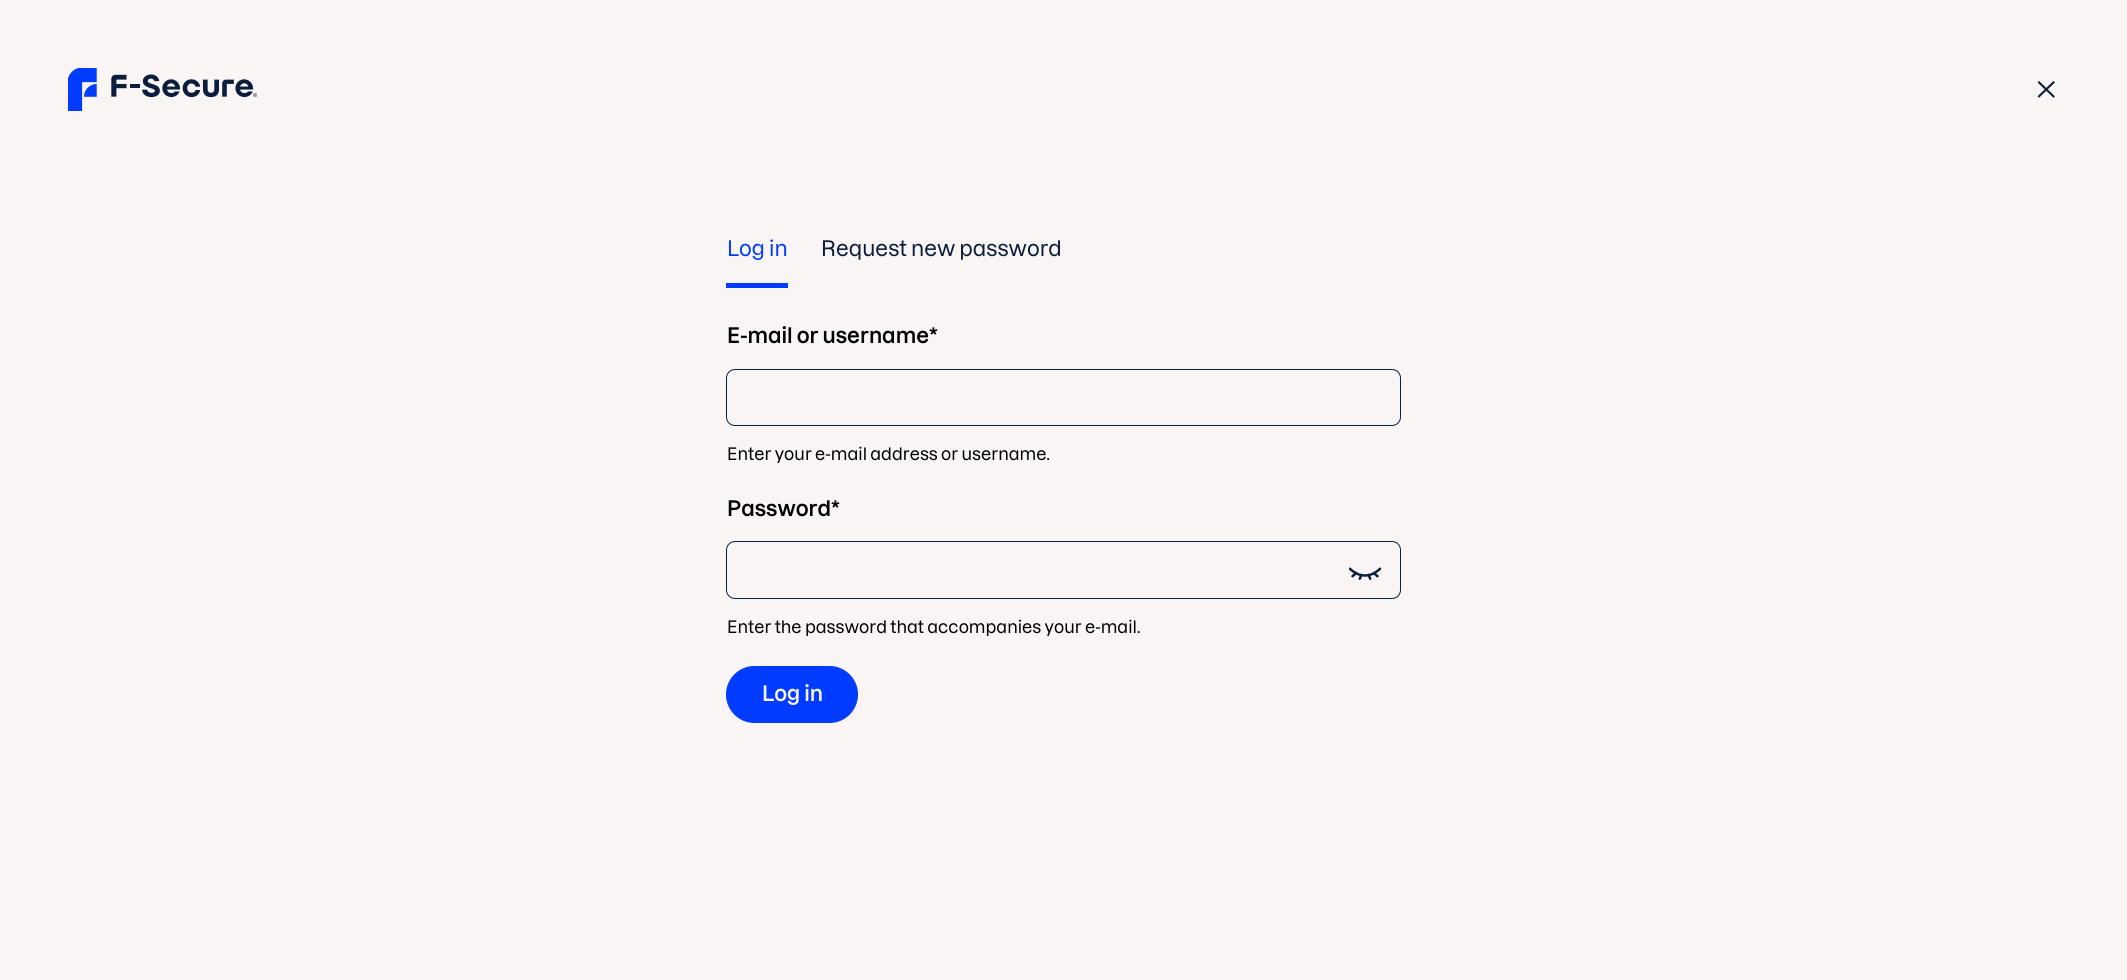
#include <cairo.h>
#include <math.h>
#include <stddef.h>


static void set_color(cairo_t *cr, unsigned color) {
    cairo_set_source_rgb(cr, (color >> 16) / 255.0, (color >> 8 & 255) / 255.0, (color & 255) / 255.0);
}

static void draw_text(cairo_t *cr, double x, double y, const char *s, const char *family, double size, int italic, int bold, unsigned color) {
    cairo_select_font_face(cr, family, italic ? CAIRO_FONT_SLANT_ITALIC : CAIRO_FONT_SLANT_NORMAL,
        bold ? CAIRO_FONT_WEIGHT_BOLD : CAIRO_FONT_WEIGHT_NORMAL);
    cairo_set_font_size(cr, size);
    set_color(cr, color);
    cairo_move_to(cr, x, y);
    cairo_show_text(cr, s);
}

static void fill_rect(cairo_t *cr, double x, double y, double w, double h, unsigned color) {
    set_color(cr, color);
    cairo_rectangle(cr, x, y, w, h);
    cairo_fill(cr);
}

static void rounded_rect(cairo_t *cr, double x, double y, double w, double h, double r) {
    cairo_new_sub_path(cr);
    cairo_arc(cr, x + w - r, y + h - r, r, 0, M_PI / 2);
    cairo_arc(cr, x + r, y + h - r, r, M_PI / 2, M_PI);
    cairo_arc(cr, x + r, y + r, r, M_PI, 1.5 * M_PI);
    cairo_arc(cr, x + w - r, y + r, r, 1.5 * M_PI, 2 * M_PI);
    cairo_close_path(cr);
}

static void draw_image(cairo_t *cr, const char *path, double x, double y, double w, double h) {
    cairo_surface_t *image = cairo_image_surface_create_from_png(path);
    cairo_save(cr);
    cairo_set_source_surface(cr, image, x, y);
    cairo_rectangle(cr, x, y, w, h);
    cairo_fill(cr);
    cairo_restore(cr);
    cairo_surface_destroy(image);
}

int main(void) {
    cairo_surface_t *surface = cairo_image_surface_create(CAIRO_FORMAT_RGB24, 2127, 980);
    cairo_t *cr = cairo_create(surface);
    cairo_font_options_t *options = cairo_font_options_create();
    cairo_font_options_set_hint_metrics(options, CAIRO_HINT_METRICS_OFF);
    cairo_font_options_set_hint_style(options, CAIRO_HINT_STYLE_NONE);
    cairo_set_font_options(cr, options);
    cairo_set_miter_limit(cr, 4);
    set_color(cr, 0xFAF5F5);
    cairo_paint(cr);
    draw_image(cr, "assets/img1.png", 68, 68, 189, 43);
    draw_image(cr, "assets/img2.png", 2037, 81, 18, 17);
    fill_rect(cr, 726, 283, 62, 5, 0x003CFF);
    draw_text(cr, 727, 256, "Log in", "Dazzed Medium", 21, 0, 0, 0x003CFF);
    draw_text(cr, 821, 256, "Request new password", "Dazzed Medium", 21, 0, 0, 0x0A1E3C);
    draw_text(cr, 727, 343, "E-mail or username*", "Dazzed SemiBold", 21, 0, 0, 0x000000);
    rounded_rect(cr, 726.5, 369.5, 674, 56, 8.5);
    set_color(cr, 0x0A1E3C);
    cairo_set_line_width(cr, 1);
    cairo_stroke(cr);
    draw_text(cr, 727, 460, "Enter your e-mail address or username.", "Dazzed Medium", 16.85, 0, 0, 0x000000);
    draw_text(cr, 727, 516, "Password*", "Dazzed SemiBold", 21, 0, 0, 0x000000);
    rounded_rect(cr, 726.5, 541.5, 674, 57, 8.5);
    set_color(cr, 0x0A1E3C);
    cairo_stroke(cr);
    draw_image(cr, "assets/img3.png", 1349, 567, 33, 13);
    draw_text(cr, 727, 633, "Enter the password that accompanies your e-mail.", "Dazzed Medium", 16.85, 0, 0, 0x000000);
    set_color(cr, 0x003CFF);
    rounded_rect(cr, 726.5, 666.5, 131, 56, 28);
    cairo_fill_preserve(cr);
    cairo_stroke(cr);
    draw_text(cr, 762, 701, "Log in", "Dazzed SemiBold", 21, 0, 0, 0xFAF5F5);
    cairo_surface_write_to_png(surface, "output.png");
    cairo_font_options_destroy(options);
    cairo_destroy(cr);
    cairo_surface_destroy(surface);
    return 0;
}
